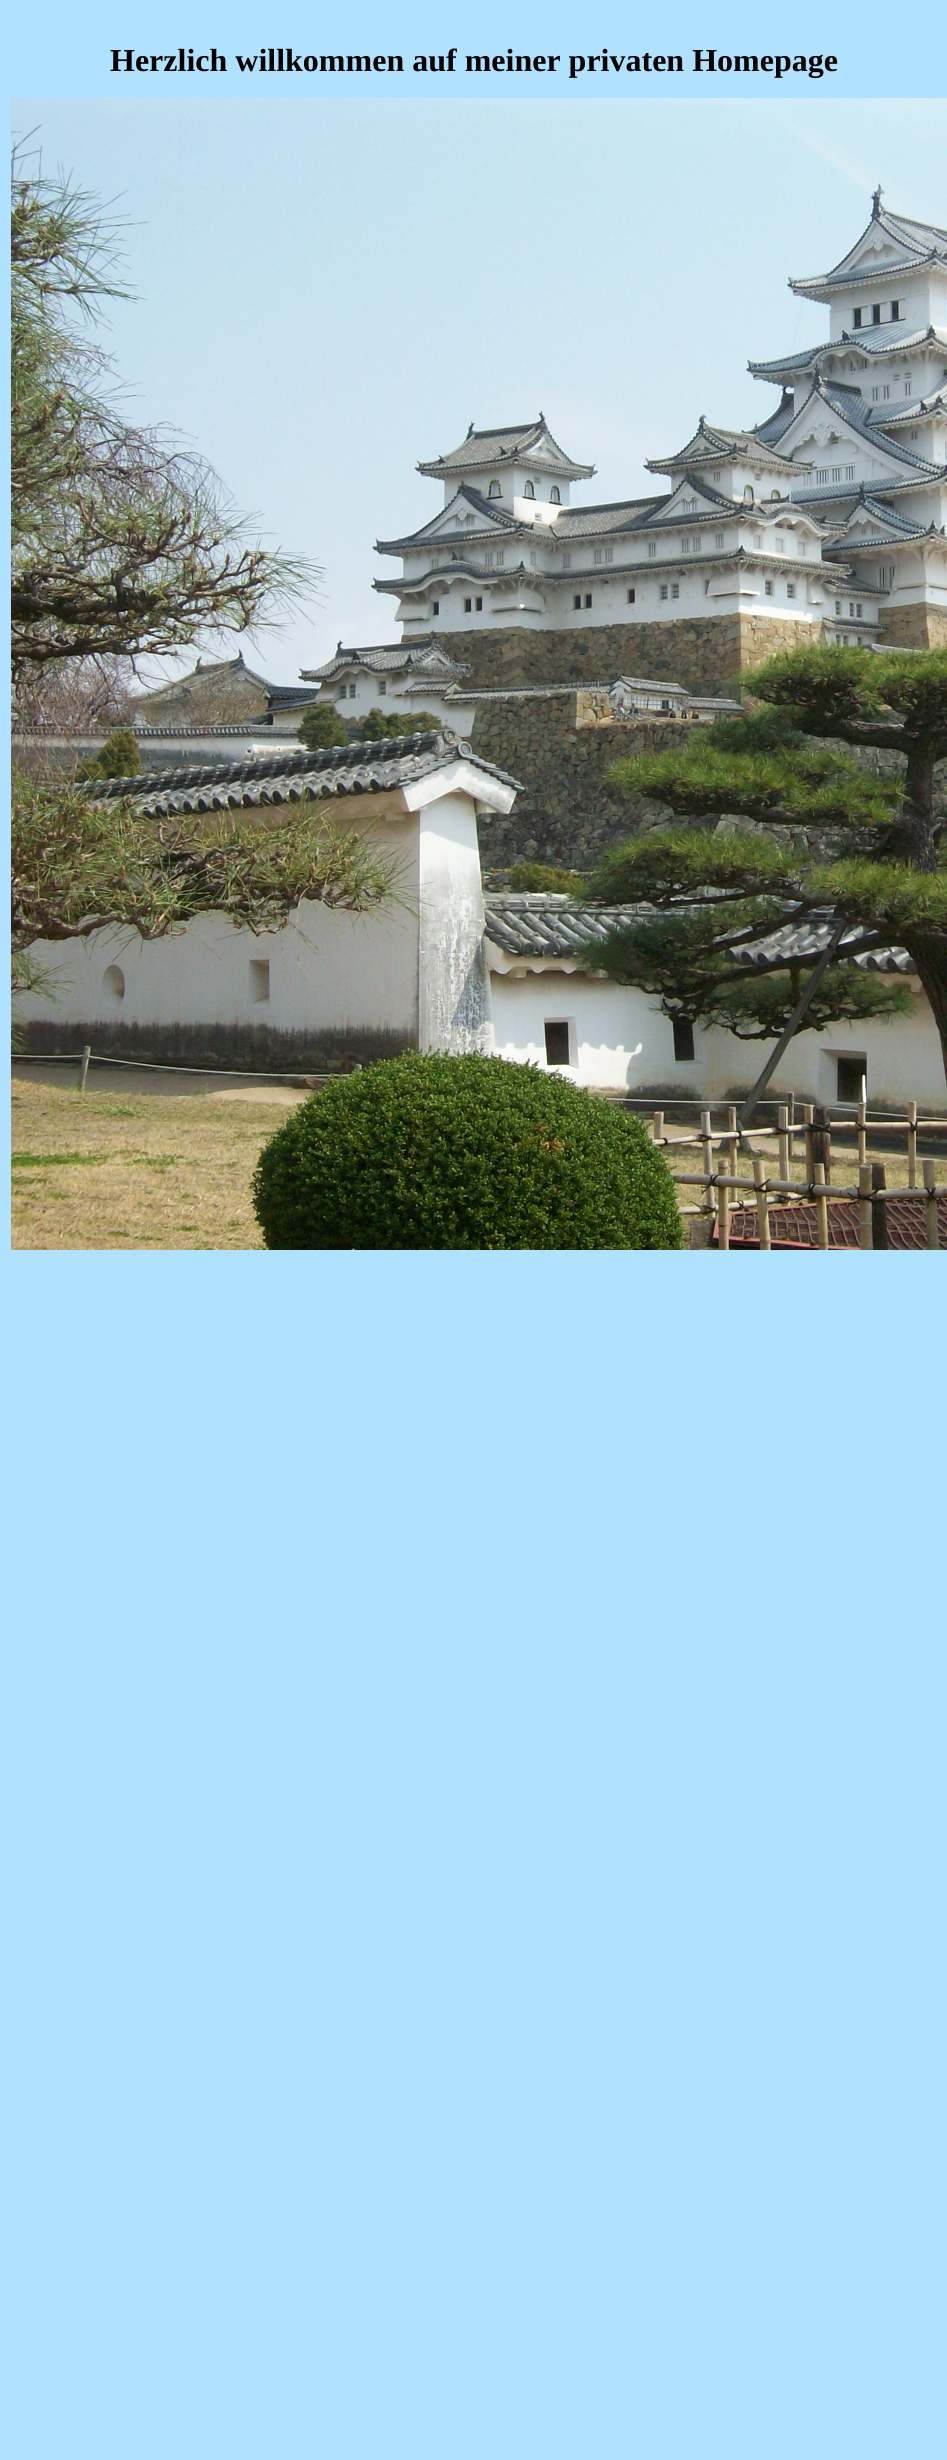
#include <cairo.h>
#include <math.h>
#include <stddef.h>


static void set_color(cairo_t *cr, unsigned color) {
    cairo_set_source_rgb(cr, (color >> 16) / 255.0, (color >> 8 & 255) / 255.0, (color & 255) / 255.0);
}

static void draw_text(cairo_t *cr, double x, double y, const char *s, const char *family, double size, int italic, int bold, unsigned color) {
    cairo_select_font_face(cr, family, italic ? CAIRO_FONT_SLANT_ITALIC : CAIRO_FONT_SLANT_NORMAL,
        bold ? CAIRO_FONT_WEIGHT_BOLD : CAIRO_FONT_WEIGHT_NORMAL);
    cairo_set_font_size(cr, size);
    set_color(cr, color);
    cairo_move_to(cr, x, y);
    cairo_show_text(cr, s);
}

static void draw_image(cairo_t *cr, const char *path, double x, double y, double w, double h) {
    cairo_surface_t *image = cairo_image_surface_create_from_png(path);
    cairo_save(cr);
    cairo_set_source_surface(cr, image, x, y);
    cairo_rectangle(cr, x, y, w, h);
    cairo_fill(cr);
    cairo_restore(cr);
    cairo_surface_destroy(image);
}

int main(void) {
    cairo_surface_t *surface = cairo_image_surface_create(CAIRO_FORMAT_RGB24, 947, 2460);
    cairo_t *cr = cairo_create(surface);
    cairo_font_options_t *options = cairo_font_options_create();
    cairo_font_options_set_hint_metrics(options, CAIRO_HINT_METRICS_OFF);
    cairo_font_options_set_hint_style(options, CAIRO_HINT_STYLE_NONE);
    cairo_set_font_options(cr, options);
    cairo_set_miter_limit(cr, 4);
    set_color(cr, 0xB0E2FF);
    cairo_paint(cr);
    draw_text(cr, 110, 71, "Herzlich willkommen auf meiner privaten Homepage", "Liberation Serif", 32, 0, 1, 0x000000);
    draw_image(cr, "assets/img1.png", 11, 98, 936, 1152);
    cairo_surface_write_to_png(surface, "output.png");
    cairo_font_options_destroy(options);
    cairo_destroy(cr);
    cairo_surface_destroy(surface);
    return 0;
}
